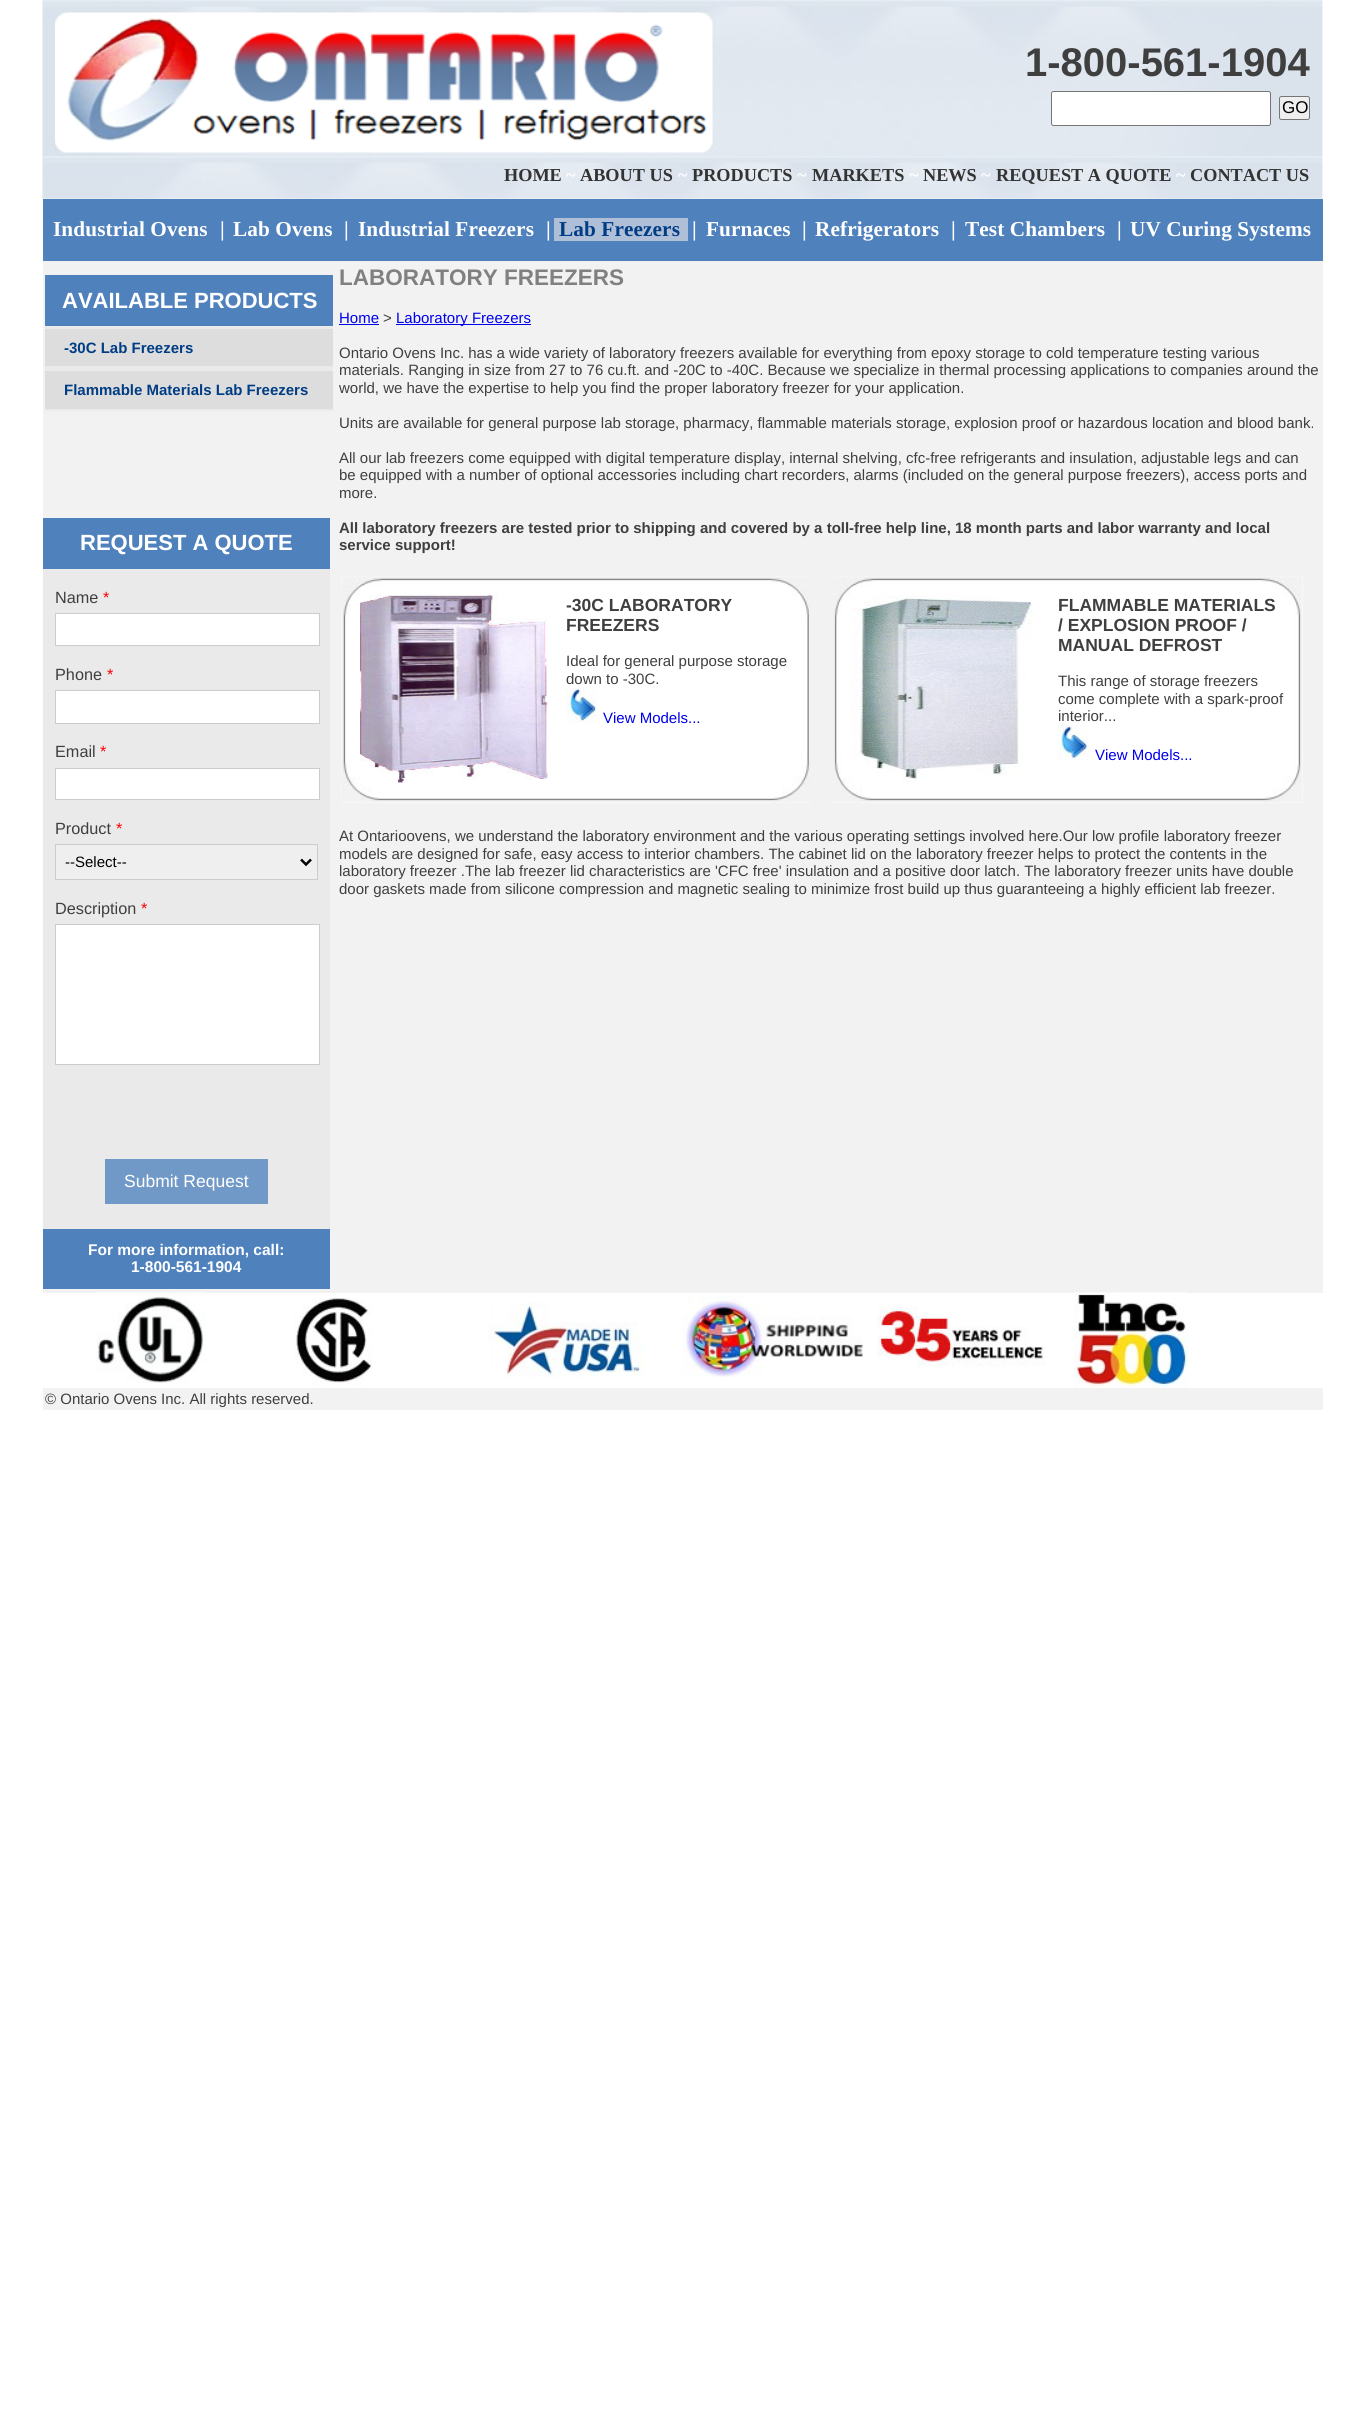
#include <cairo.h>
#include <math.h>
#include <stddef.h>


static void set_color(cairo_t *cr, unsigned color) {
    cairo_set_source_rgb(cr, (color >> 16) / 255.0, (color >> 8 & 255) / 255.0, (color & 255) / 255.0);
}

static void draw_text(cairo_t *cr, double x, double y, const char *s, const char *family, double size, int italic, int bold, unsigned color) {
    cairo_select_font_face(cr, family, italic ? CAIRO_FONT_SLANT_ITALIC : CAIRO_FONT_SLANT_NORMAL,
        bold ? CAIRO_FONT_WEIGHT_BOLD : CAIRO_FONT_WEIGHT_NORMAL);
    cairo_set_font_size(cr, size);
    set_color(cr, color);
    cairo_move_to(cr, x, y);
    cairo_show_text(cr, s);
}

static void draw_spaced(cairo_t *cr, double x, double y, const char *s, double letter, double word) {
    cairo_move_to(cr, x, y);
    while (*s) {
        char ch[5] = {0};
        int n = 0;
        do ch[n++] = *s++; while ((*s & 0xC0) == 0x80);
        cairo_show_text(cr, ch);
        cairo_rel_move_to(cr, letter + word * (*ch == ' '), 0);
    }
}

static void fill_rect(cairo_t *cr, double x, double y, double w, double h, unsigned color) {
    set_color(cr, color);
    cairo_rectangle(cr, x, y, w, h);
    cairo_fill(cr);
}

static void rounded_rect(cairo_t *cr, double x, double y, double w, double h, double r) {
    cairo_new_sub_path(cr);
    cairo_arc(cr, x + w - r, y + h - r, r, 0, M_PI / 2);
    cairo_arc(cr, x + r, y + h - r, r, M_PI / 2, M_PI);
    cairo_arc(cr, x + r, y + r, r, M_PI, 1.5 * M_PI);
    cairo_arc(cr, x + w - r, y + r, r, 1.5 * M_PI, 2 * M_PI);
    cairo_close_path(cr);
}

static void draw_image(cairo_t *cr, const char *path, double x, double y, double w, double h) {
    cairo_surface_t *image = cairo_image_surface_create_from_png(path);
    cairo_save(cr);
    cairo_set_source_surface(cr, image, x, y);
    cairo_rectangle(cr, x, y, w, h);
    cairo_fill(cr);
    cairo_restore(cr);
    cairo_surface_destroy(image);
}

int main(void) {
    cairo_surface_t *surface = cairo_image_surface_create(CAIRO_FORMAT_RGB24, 1364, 2433);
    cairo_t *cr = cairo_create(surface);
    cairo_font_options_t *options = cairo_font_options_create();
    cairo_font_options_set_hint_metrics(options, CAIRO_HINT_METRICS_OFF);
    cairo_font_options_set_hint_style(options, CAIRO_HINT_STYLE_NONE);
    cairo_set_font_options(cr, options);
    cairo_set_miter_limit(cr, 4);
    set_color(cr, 0xFFFFFF);
    cairo_paint(cr);
    draw_image(cr, "assets/img1.png", 42, 0, 1281, 199);
    draw_image(cr, "assets/img2.png", 55, 12, 658, 141);
    draw_text(cr, 1025, 76, "1-800-561-1904", "Liberation Sans", 40, 0, 1, 0x3F3F3F);
    set_color(cr, 0xFFFFFF);
    rounded_rect(cr, 1051.5, 91.5, 219, 34, 2);
    cairo_fill_preserve(cr);
    set_color(cr, 0x767676);
    cairo_set_line_width(cr, 1);
    cairo_stroke(cr);
    set_color(cr, 0xEFEFEF);
    rounded_rect(cr, 1279.5, 96.5, 30, 23, 2);
    cairo_fill_preserve(cr);
    set_color(cr, 0x767676);
    cairo_stroke(cr);
    draw_text(cr, 1282, 113, "GO", "Liberation Sans", 17, 0, 0, 0x000000);
    draw_text(cr, 504, 181, "HOME", "Liberation Serif", 18.25, 0, 1, 0x333333);
    draw_text(cr, 566, 181, "~", "Liberation Serif", 18.25, 0, 1, 0xFFFFFF);
    draw_text(cr, 580, 181, "ABOUT US", "Liberation Serif", 18.25, 0, 1, 0x333333);
    draw_text(cr, 678, 181, "~", "Liberation Serif", 18.25, 0, 1, 0xFFFFFF);
    draw_text(cr, 692, 181, "PRODUCTS", "Liberation Serif", 18.25, 0, 1, 0x333333);
    draw_text(cr, 797, 181, "~", "Liberation Serif", 18.25, 0, 1, 0xFFFFFF);
    draw_text(cr, 812, 181, "MARKETS", "Liberation Serif", 18.25, 0, 1, 0x333333);
    draw_text(cr, 909, 181, "~", "Liberation Serif", 18.25, 0, 1, 0xFFFFFF);
    draw_text(cr, 923, 181, "NEWS", "Liberation Serif", 18.25, 0, 1, 0x333333);
    draw_text(cr, 981, 181, "~", "Liberation Serif", 18.25, 0, 1, 0xFFFFFF);
    draw_text(cr, 996, 181, "REQUEST A QUOTE", "Liberation Serif", 18.25, 0, 1, 0x333333);
    draw_text(cr, 1176, 181, "~", "Liberation Serif", 18.25, 0, 1, 0xFFFFFF);
    draw_text(cr, 1190, 181, "CONTACT US", "Liberation Serif", 18.25, 0, 1, 0x333333);
    fill_rect(cr, 43, 199, 1280, 62, 0x4F81BD);
    cairo_set_font_size(cr, 21.25);
    set_color(cr, 0xFFFFFF);
    draw_spaced(cr, 53, 236, "Industrial Ovens", 0.1, 0);
    draw_text(cr, 220, 236, "|", "Liberation Serif", 21.25, 0, 1, 0xFFFFFF);
    draw_spaced(cr, 233, 236, "Lab Ovens", 0.1, 0);
    draw_text(cr, 344, 236, "|", "Liberation Serif", 21.25, 0, 1, 0xFFFFFF);
    draw_spaced(cr, 358, 236, "Industrial Freezers", 0.1, 0);
    draw_text(cr, 546, 236, "|", "Liberation Serif", 21.25, 0, 1, 0xFFFFFF);
    fill_rect(cr, 554, 218, 134, 23, 0xAFBFD8);
    set_color(cr, 0x003D84);
    draw_spaced(cr, 559, 236, "Lab Freezers", 0.1, 0);
    draw_text(cr, 692, 236, "|", "Liberation Serif", 21.25, 0, 1, 0xFFFFFF);
    draw_spaced(cr, 706, 236, "Furnaces", 0.1, 0);
    draw_text(cr, 802, 236, "|", "Liberation Serif", 21.25, 0, 1, 0xFFFFFF);
    draw_spaced(cr, 815, 236, "Refrigerators", 0.1, 0);
    draw_text(cr, 951, 236, "|", "Liberation Serif", 21.25, 0, 1, 0xFFFFFF);
    draw_spaced(cr, 965, 236, "Test Chambers", 0.1, 0);
    draw_text(cr, 1117, 236, "|", "Liberation Serif", 21.25, 0, 1, 0xFFFFFF);
    draw_spaced(cr, 1130, 236, "UV Curing Systems", 0.1, 0);
    fill_rect(cr, 43, 261, 1280, 1032, 0xF2F2F2);
    fill_rect(cr, 45, 326, 288, 85, 0xEAEAEA);
    fill_rect(cr, 45, 275, 288, 51, 0x4F81BD);
    draw_text(cr, 62, 308, "AVAILABLE PRODUCTS", "Liberation Sans", 22, 0, 1, 0xFFFFFF);
    fill_rect(cr, 45, 329, 288, 37, 0xDDDDDD);
    draw_text(cr, 64, 353, "-30C Lab Freezers", "Liberation Sans", 15, 0, 1, 0x003D84);
    fill_rect(cr, 45, 371, 288, 38, 0xDDDDDD);
    draw_text(cr, 64, 395, "Flammable Materials Lab Freezers", "Liberation Sans", 15, 0, 1, 0x003D84);
    fill_rect(cr, 43, 569, 287, 660, 0xEAEAEA);
    fill_rect(cr, 43, 518, 287, 51, 0x4F81BD);
    draw_text(cr, 80, 550, "REQUEST A QUOTE", "Liberation Sans", 22, 0, 1, 0xFFFFFF);
    draw_text(cr, 55, 603, "Name", "Liberation Sans", 16.25, 0, 0, 0x3F3F3F);
    draw_text(cr, 103, 603, "*", "Liberation Sans", 16.25, 0, 0, 0xFF0000);
    set_color(cr, 0xFFFFFF);
    cairo_rectangle(cr, 55.5, 613.5, 264, 32);
    cairo_fill_preserve(cr);
    set_color(cr, 0xCCCCCC);
    cairo_stroke(cr);
    draw_text(cr, 55, 680, "Phone", "Liberation Sans", 16.25, 0, 0, 0x3F3F3F);
    draw_text(cr, 107, 680, "*", "Liberation Sans", 16.25, 0, 0, 0xFF0000);
    set_color(cr, 0xFFFFFF);
    cairo_rectangle(cr, 55.5, 690.5, 264, 33);
    cairo_fill_preserve(cr);
    set_color(cr, 0xCCCCCC);
    cairo_stroke(cr);
    draw_text(cr, 55, 757, "Email", "Liberation Sans", 16.25, 0, 0, 0x3F3F3F);
    draw_text(cr, 100, 757, "*", "Liberation Sans", 16.25, 0, 0, 0xFF0000);
    set_color(cr, 0xFFFFFF);
    cairo_rectangle(cr, 55.5, 768.5, 264, 31);
    cairo_fill_preserve(cr);
    set_color(cr, 0xCCCCCC);
    cairo_stroke(cr);
    draw_text(cr, 55, 834, "Product", "Liberation Sans", 16.25, 0, 0, 0x3F3F3F);
    draw_text(cr, 116, 834, "*", "Liberation Sans", 16.25, 0, 0, 0xFF0000);
    set_color(cr, 0xEFEFEF);
    cairo_rectangle(cr, 55.5, 844.5, 262, 35);
    cairo_fill_preserve(cr);
    set_color(cr, 0xCCCCCC);
    cairo_stroke(cr);
    cairo_new_path(cr);
    cairo_move_to(cr, 301, 859.5);
    cairo_line_to(cr, 306, 864.5);
    cairo_line_to(cr, 311, 859.5);
    set_color(cr, 0x000000);
    cairo_set_line_width(cr, 2.5);
    cairo_stroke(cr);
    draw_text(cr, 65, 867, "--Select--", "Liberation Sans", 15, 0, 0, 0x000000);
    draw_text(cr, 55, 914, "Description", "Liberation Sans", 16.25, 0, 0, 0x3F3F3F);
    draw_text(cr, 141, 914, "*", "Liberation Sans", 16.25, 0, 0, 0xFF0000);
    set_color(cr, 0xFFFFFF);
    cairo_rectangle(cr, 55.5, 924.5, 264, 140);
    cairo_fill_preserve(cr);
    set_color(cr, 0xCCCCCC);
    cairo_set_line_width(cr, 1);
    cairo_stroke(cr);
    fill_rect(cr, 105, 1159, 163, 45, 0x7199C7);
    draw_text(cr, 124, 1187, "Submit Request", "Liberation Sans", 17.5, 0, 0, 0xFFFFFF);
    fill_rect(cr, 43, 1229, 287, 60, 0x4F81BD);
    draw_text(cr, 88, 1255, "For more information, call:", "Liberation Sans", 15.5, 0, 1, 0xFFFFFF);
    draw_text(cr, 131, 1272, "1-800-561-1904", "Liberation Sans", 15.5, 0, 1, 0xFFFFFF);
    draw_text(cr, 339, 285, "LABORATORY FREEZERS", "Liberation Sans", 22.5, 0, 1, 0x808080);
    draw_text(cr, 339, 323, "Home", "Liberation Sans", 15, 0, 0, 0x0000EE);
    fill_rect(cr, 339, 324, 40, 1, 0x0000EE);
    draw_text(cr, 383, 323, ">", "Liberation Sans", 15, 0, 0, 0x3F3F3F);
    fill_rect(cr, 396, 324, 135, 1, 0x0000EE);
    draw_text(cr, 396, 323, "Laboratory Freezers", "Liberation Sans", 15, 0, 0, 0x0000EE);
    draw_text(cr, 339, 358, "Ontario Ovens Inc. has a wide variety of laboratory freezers available for everything from epoxy storage to cold temperature testing various", "Liberation Sans", 15, 0, 0, 0x3F3F3F);
    draw_text(cr, 339, 375, "materials. Ranging in size from 27 to 76 cu.ft. and -20C to -40C. Because we specialize in thermal processing applications to companies around the", "Liberation Sans", 15, 0, 0, 0x3F3F3F);
    draw_text(cr, 339, 393, "world, we have the expertise to help you find the proper laboratory freezer for your application.", "Liberation Sans", 15, 0, 0, 0x3F3F3F);
    draw_text(cr, 339, 428, "Units are available for general purpose lab storage, pharmacy, flammable materials storage, explosion proof or hazardous location and blood bank.", "Liberation Sans", 15, 0, 0, 0x3F3F3F);
    draw_text(cr, 339, 463, "All our lab freezers come equipped with digital temperature display, internal shelving, cfc-free refrigerants and insulation, adjustable legs and can", "Liberation Sans", 15, 0, 0, 0x3F3F3F);
    draw_text(cr, 339, 480, "be equipped with a number of optional accessories including chart recorders, alarms (included on the general purpose freezers), access ports and", "Liberation Sans", 15, 0, 0, 0x3F3F3F);
    draw_text(cr, 339, 498, "more.", "Liberation Sans", 15, 0, 0, 0x3F3F3F);
    draw_text(cr, 339, 533, "All laboratory freezers are tested prior to shipping and covered by a toll-free help line, 18 month parts and labor warranty and local", "Liberation Sans", 15, 0, 1, 0x3F3F3F);
    draw_text(cr, 339, 550, "service support!", "Liberation Sans", 15, 0, 1, 0x3F3F3F);
    fill_rect(cr, 341, 576, 470, 227, 0xFFFFFF);
    draw_image(cr, "assets/img3.png", 341, 576, 470, 227);
    draw_image(cr, "assets/img4.png", 360, 595, 188, 188);
    draw_text(cr, 566, 611, "-30C LABORATORY", "Liberation Sans", 17.5, 0, 1, 0x3F3F3F);
    draw_text(cr, 566, 631, "FREEZERS", "Liberation Sans", 17.5, 0, 1, 0x3F3F3F);
    draw_text(cr, 566, 666, "Ideal for general purpose storage", "Liberation Sans", 15, 0, 0, 0x3F3F3F);
    draw_text(cr, 566, 684, "down to -30C.", "Liberation Sans", 15, 0, 0, 0x3F3F3F);
    draw_image(cr, "assets/img5.png", 566, 687, 33, 36);
    draw_text(cr, 603, 723, "View Models...", "Liberation Sans", 15, 0, 0, 0x0000EE);
    fill_rect(cr, 833, 576, 470, 227, 0xFFFFFF);
    draw_image(cr, "assets/img6.png", 833, 576, 470, 227);
    draw_image(cr, "assets/img7.png", 851, 595, 182, 187);
    draw_text(cr, 1058, 611, "FLAMMABLE MATERIALS", "Liberation Sans", 17.5, 0, 1, 0x3F3F3F);
    draw_text(cr, 1058, 631, "/ EXPLOSION PROOF /", "Liberation Sans", 17.5, 0, 1, 0x3F3F3F);
    draw_text(cr, 1058, 651, "MANUAL DEFROST", "Liberation Sans", 17.5, 0, 1, 0x3F3F3F);
    draw_text(cr, 1058, 686, "This range of storage freezers", "Liberation Sans", 15, 0, 0, 0x3F3F3F);
    draw_text(cr, 1058, 704, "come complete with a spark-proof", "Liberation Sans", 15, 0, 0, 0x3F3F3F);
    draw_text(cr, 1058, 721, "interior...", "Liberation Sans", 15, 0, 0, 0x3F3F3F);
    draw_image(cr, "assets/img8.png", 1057, 725, 33, 35);
    draw_text(cr, 1095, 760, "View Models...", "Liberation Sans", 15, 0, 0, 0x0000EE);
    draw_text(cr, 339, 841, "At Ontarioovens, we understand the laboratory environment and the various operating settings involved here.Our low profile laboratory freezer", "Liberation Sans", 15, 0, 0, 0x3F3F3F);
    draw_text(cr, 339, 859, "models are designed for safe, easy access to interior chambers. The cabinet lid on the laboratory freezer helps to protect the contents in the", "Liberation Sans", 15, 0, 0, 0x3F3F3F);
    draw_text(cr, 339, 876, "laboratory freezer .The lab freezer lid characteristics are 'CFC free' insulation and a positive door latch. The laboratory freezer units have double", "Liberation Sans", 15, 0, 0, 0x3F3F3F);
    draw_text(cr, 339, 894, "door gaskets made from silicone compression and magnetic sealing to minimize frost build up thus guaranteeing a highly efficient lab freezer.", "Liberation Sans", 15, 0, 0, 0x3F3F3F);
    draw_image(cr, "assets/img9.png", 96, 1292, 110, 91);
    draw_image(cr, "assets/img10.png", 294, 1298, 78, 87);
    draw_image(cr, "assets/img11.png", 487, 1302, 157, 76);
    draw_image(cr, "assets/img12.png", 682, 1296, 181, 81);
    draw_image(cr, "assets/img13.png", 877, 1306, 169, 61);
    draw_image(cr, "assets/img14.png", 1074, 1292, 115, 96);
    fill_rect(cr, 43, 1388, 1280, 22, 0xF2F2F2);
    draw_text(cr, 45, 1404, "© Ontario Ovens Inc. All rights reserved.", "Liberation Sans", 15, 0, 0, 0x3F3F3F);
    cairo_surface_write_to_png(surface, "output.png");
    cairo_font_options_destroy(options);
    cairo_destroy(cr);
    cairo_surface_destroy(surface);
    return 0;
}
